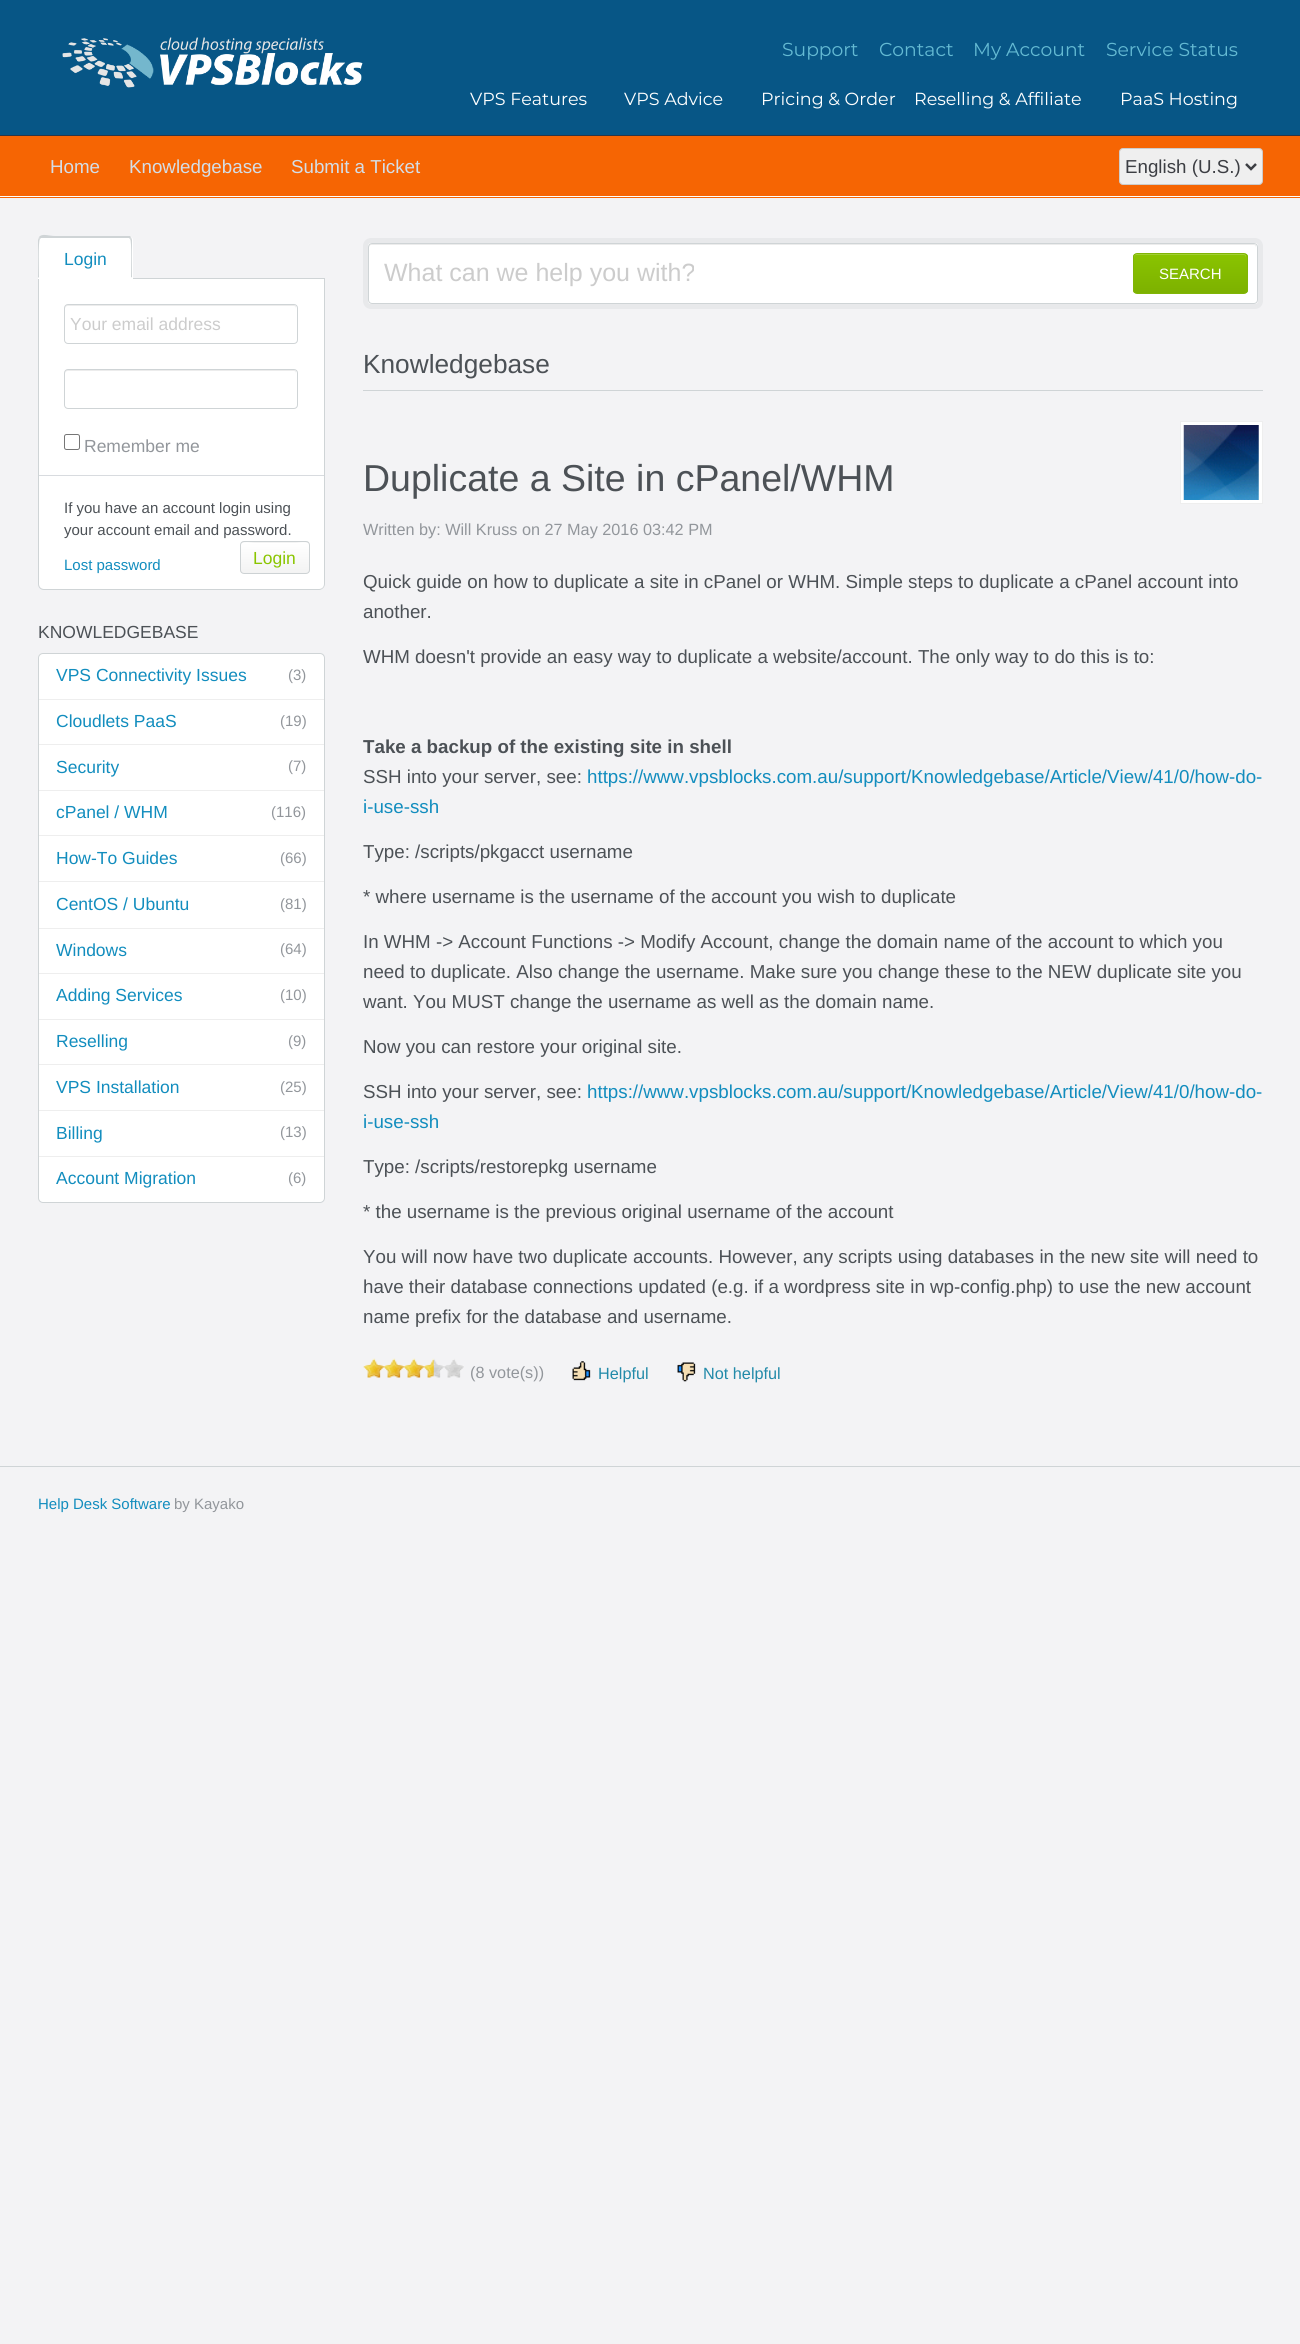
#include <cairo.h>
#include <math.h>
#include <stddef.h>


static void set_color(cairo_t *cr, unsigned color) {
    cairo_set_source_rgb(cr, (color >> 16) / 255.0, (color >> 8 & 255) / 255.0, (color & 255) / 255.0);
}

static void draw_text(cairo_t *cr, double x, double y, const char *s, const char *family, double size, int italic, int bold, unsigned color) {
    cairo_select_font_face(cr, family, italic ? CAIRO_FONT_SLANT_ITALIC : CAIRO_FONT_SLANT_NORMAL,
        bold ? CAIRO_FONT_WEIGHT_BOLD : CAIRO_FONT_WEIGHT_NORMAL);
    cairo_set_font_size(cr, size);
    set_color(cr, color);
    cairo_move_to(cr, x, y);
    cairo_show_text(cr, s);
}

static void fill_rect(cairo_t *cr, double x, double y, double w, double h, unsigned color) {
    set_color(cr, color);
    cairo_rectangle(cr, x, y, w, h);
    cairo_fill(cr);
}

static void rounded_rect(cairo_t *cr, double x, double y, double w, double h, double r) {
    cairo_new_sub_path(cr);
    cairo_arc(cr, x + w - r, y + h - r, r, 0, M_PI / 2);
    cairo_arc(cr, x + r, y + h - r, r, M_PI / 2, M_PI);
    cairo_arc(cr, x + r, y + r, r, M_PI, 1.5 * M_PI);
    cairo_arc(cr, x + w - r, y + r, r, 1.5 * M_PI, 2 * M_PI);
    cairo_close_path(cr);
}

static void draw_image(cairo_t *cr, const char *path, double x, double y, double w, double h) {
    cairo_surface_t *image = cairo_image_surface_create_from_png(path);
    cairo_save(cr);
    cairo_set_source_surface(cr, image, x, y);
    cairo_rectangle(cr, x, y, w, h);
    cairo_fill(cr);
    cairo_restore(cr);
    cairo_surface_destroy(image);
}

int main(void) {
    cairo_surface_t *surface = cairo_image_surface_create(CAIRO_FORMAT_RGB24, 1300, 2344);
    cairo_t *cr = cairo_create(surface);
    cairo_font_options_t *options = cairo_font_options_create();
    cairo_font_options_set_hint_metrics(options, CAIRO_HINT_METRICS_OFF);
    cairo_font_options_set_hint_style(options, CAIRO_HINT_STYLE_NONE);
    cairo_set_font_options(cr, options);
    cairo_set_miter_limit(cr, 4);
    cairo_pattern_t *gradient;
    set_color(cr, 0xF3F3F5);
    cairo_paint(cr);
    fill_rect(cr, 0, 0, 1300, 135, 0x075686);
    draw_image(cr, "assets/img1.png", 62, 37, 301, 51);
    draw_text(cr, 782, 56, "Support", "Montserrat", 18.75, 0, 0, 0x64BAD3);
    draw_text(cr, 879, 56, "Contact", "Montserrat", 18.75, 0, 0, 0x64BAD3);
    draw_text(cr, 973, 56, "My Account", "Montserrat", 18.75, 0, 0, 0x64BAD3);
    draw_text(cr, 1106, 56, "Service Status", "Montserrat", 18.75, 0, 0, 0x64BAD3);
    draw_text(cr, 470, 105, "VPS Features", "Montserrat", 17.5, 0, 0, 0xFFFFFF);
    draw_text(cr, 624, 105, "VPS Advice", "Montserrat", 17.5, 0, 0, 0xFFFFFF);
    draw_text(cr, 761, 105, "Pricing & Order", "Montserrat", 17.5, 0, 0, 0xFFFFFF);
    draw_text(cr, 914, 105, "Reselling & Affiliate", "Montserrat", 17.5, 0, 0, 0xFFFFFF);
    draw_text(cr, 1120, 105, "PaaS Hosting", "Montserrat", 17.5, 0, 0, 0xFFFFFF);
    fill_rect(cr, 0, 136, 1300, 62, 0xF66503);
    fill_rect(cr, 0, 135, 1300, 1, 0x2D3646);
    fill_rect(cr, 0, 196, 1300, 1, 0xFFFFFF);
    draw_text(cr, 50, 173, "Home", "Liberation Sans", 18.75, 0, 0, 0xD4DEE7);
    draw_text(cr, 129, 173, "Knowledgebase", "Liberation Sans", 18.75, 0, 0, 0xD4DEE7);
    draw_text(cr, 291, 173, "Submit a Ticket", "Liberation Sans", 18.75, 0, 0, 0xD4DEE7);
    set_color(cr, 0xEFEFEF);
    rounded_rect(cr, 1119.5, 148.5, 143, 36, 3.5);
    cairo_fill_preserve(cr);
    set_color(cr, 0xCCCCCC);
    cairo_set_line_width(cr, 1);
    cairo_stroke(cr);
    cairo_new_path(cr);
    cairo_move_to(cr, 1246, 164);
    cairo_line_to(cr, 1251, 169);
    cairo_line_to(cr, 1256, 164);
    set_color(cr, 0x3C3E43);
    cairo_set_line_width(cr, 2.5);
    cairo_stroke(cr);
    draw_text(cr, 1125, 173, "English (U.S.)", "Liberation Sans", 18.75, 0, 0, 0x3C3E43);
    fill_rect(cr, 133, 278, 192, 1, 0xCFD4D6);
    set_color(cr, 0xFFFFFF);
    cairo_new_path(cr);
    cairo_move_to(cr, 42, 236);
    cairo_line_to(cr, 129, 236);
    cairo_curve_to(cr, 131, 236, 133, 238, 133, 240);
    cairo_line_to(cr, 133, 279);
    cairo_line_to(cr, 38, 279);
    cairo_line_to(cr, 38, 240);
    cairo_curve_to(cr, 38, 238, 40, 236, 42, 236);
    cairo_close_path(cr);
    cairo_fill(cr);
    set_color(cr, 0xCFD4D6);
    cairo_new_path(cr);
    cairo_move_to(cr, 41, 238);
    cairo_line_to(cr, 40, 239);
    cairo_line_to(cr, 39, 237);
    cairo_curve_to(cr, 42, 233, 49, 236, 55, 236);
    cairo_line_to(cr, 130, 236);
    cairo_line_to(cr, 131, 237);
    cairo_line_to(cr, 130, 239);
    cairo_line_to(cr, 129, 238);
    cairo_close_path(cr);
    cairo_fill(cr);
    cairo_new_path(cr);
    cairo_move_to(cr, 131, 237);
    cairo_line_to(cr, 132, 240);
    cairo_line_to(cr, 132, 278);
    cairo_line_to(cr, 131, 277);
    cairo_curve_to(cr, 131, 273, 132, 240, 130, 239);
    cairo_close_path(cr);
    cairo_fill(cr);
    set_color(cr, 0xFFFFFF);
    cairo_new_path(cr);
    cairo_move_to(cr, 38, 279);
    cairo_line_to(cr, 39, 277);
    cairo_line_to(cr, 39, 278);
    cairo_line_to(cr, 131, 278);
    cairo_line_to(cr, 131, 277);
    cairo_line_to(cr, 132, 278);
    cairo_line_to(cr, 132, 279);
    cairo_close_path(cr);
    cairo_fill(cr);
    set_color(cr, 0xCFD4D6);
    cairo_new_path(cr);
    cairo_move_to(cr, 38, 278);
    cairo_line_to(cr, 38, 240);
    cairo_line_to(cr, 39, 237);
    cairo_line_to(cr, 40, 239);
    cairo_curve_to(cr, 38, 240, 39, 273, 39, 277);
    cairo_close_path(cr);
    cairo_fill(cr);
    draw_text(cr, 64, 265, "Login", "Liberation Sans", 17.5, 0, 0, 0x128DBE);
    set_color(cr, 0xFFFFFF);
    cairo_new_path(cr);
    cairo_move_to(cr, 39, 279);
    cairo_line_to(cr, 324, 279);
    cairo_line_to(cr, 324, 584);
    cairo_curve_to(cr, 324, 587, 322, 589, 319, 589);
    cairo_line_to(cr, 44, 589);
    cairo_curve_to(cr, 41, 589, 39, 587, 39, 584);
    cairo_close_path(cr);
    cairo_fill(cr);
    set_color(cr, 0xCFD4D6);
    cairo_set_fill_rule(cr, CAIRO_FILL_RULE_EVEN_ODD);
    cairo_new_path(cr);
    cairo_move_to(cr, 38, 279);
    cairo_line_to(cr, 325, 279);
    cairo_line_to(cr, 325, 584);
    cairo_curve_to(cr, 325, 587, 322, 590, 319, 590);
    cairo_line_to(cr, 44, 590);
    cairo_curve_to(cr, 40, 590, 38, 587, 38, 584);
    cairo_close_path(cr);
    cairo_move_to(cr, 39, 279);
    cairo_line_to(cr, 324, 279);
    cairo_line_to(cr, 324, 584);
    cairo_curve_to(cr, 324, 587, 322, 589, 319, 589);
    cairo_line_to(cr, 44, 589);
    cairo_curve_to(cr, 41, 589, 39, 587, 39, 584);
    cairo_close_path(cr);
    cairo_fill(cr);
    set_color(cr, 0xECECEC);
    cairo_set_fill_rule(cr, CAIRO_FILL_RULE_WINDING);
    cairo_new_path(cr);
    cairo_move_to(cr, 68, 306);
    cairo_line_to(cr, 294, 306);
    cairo_curve_to(cr, 295, 306, 296, 307, 296, 309);
    cairo_curve_to(cr, 296, 307, 296, 305, 294, 305);
    cairo_line_to(cr, 68, 305);
    cairo_curve_to(cr, 65, 305, 65, 307, 65, 309);
    cairo_curve_to(cr, 65, 307, 66, 306, 68, 306);
    cairo_close_path(cr);
    cairo_fill(cr);
    rounded_rect(cr, 64.5, 304.5, 233, 39, 3.5);
    set_color(cr, 0xCFD4D6);
    cairo_set_line_width(cr, 1);
    cairo_stroke(cr);
    draw_text(cr, 70, 330, "Your email address", "Liberation Sans", 17.5, 0, 0, 0xCCCCCC);
    set_color(cr, 0xECECEC);
    cairo_new_path(cr);
    cairo_move_to(cr, 68, 371);
    cairo_line_to(cr, 294, 371);
    cairo_curve_to(cr, 295, 371, 296, 372, 296, 374);
    cairo_curve_to(cr, 296, 372, 296, 370, 294, 370);
    cairo_line_to(cr, 68, 370);
    cairo_curve_to(cr, 65, 370, 65, 372, 65, 374);
    cairo_curve_to(cr, 65, 372, 66, 371, 68, 371);
    cairo_close_path(cr);
    cairo_fill(cr);
    rounded_rect(cr, 64.5, 369.5, 233, 39, 3.5);
    set_color(cr, 0xCFD4D6);
    cairo_stroke(cr);
    rounded_rect(cr, 64.5, 434.5, 15, 15, 2);
    set_color(cr, 0x767676);
    cairo_stroke(cr);
    draw_text(cr, 84, 452, "Remember me", "Liberation Sans", 17.5, 0, 0, 0x92969B);
    fill_rect(cr, 39, 475, 285, 1, 0xD8DBDF);
    draw_text(cr, 64, 513, "If you have an account login using", "Liberation Sans", 15, 0, 0, 0x4C5156);
    draw_text(cr, 64, 535, "your account email and password.", "Liberation Sans", 15, 0, 0, 0x4C5156);
    draw_text(cr, 64, 570, "Lost password", "Liberation Sans", 15, 0, 0, 0x128DBE);
    cairo_save(cr);
    rounded_rect(cr, 240, 541, 70, 33, 4);
    cairo_clip(cr);
    gradient = cairo_pattern_create_linear(241, 513, 241, 543);
    cairo_pattern_add_color_stop_rgba(gradient, 0, 1, 1, 1, 1);
    cairo_pattern_add_color_stop_rgba(gradient, 1, 0.953, 0.953, 0.953, 1);
    cairo_set_source(cr, gradient);
    cairo_pattern_destroy(gradient);
    cairo_rectangle(cr, 240, 541, 70, 2);
    cairo_fill(cr);
    gradient = cairo_pattern_create_linear(241, 543, 241, 573);
    cairo_pattern_add_color_stop_rgba(gradient, 0, 1, 1, 1, 1);
    cairo_pattern_add_color_stop_rgba(gradient, 1, 0.953, 0.953, 0.953, 1);
    cairo_set_source(cr, gradient);
    cairo_pattern_destroy(gradient);
    cairo_rectangle(cr, 240, 543, 70, 30);
    cairo_fill(cr);
    cairo_restore(cr);
    set_color(cr, 0xFFFFFF);
    cairo_new_path(cr);
    cairo_move_to(cr, 244, 544);
    cairo_line_to(cr, 308, 544);
    cairo_line_to(cr, 309, 546);
    cairo_curve_to(cr, 309, 540, 298, 543, 296, 543);
    cairo_line_to(cr, 254, 543);
    cairo_curve_to(cr, 252, 543, 241, 540, 241, 546);
    cairo_curve_to(cr, 241, 545, 242, 544, 244, 544);
    cairo_close_path(cr);
    cairo_fill(cr);
    rounded_rect(cr, 240.5, 541.5, 69, 32, 3.5);
    set_color(cr, 0xCDD2D4);
    cairo_stroke(cr);
    draw_text(cr, 253, 564, "Login", "Liberation Sans", 17.5, 0, 0, 0x8AC500);
    draw_text(cr, 38, 638, "KNOWLEDGEBASE", "Liberation Sans", 17.5, 0, 0, 0x4C5156);
    set_color(cr, 0xFFFFFF);
    rounded_rect(cr, 38.5, 653.5, 286, 549, 4.5);
    cairo_fill_preserve(cr);
    set_color(cr, 0xCFD4D6);
    cairo_stroke(cr);
    fill_rect(cr, 39, 699, 285, 1, 0xEEEEEE);
    draw_text(cr, 56, 681, "VPS Connectivity Issues", "Liberation Sans", 17.5, 0, 0, 0x128DBE);
    draw_text(cr, 288, 680, "(3)", "Liberation Sans", 15, 0, 0, 0x92969B);
    fill_rect(cr, 39, 744, 285, 1, 0xEEEEEE);
    draw_text(cr, 56, 727, "Cloudlets PaaS", "Liberation Sans", 17.5, 0, 0, 0x128DBE);
    draw_text(cr, 280, 726, "(19)", "Liberation Sans", 15, 0, 0, 0x92969B);
    fill_rect(cr, 39, 790, 285, 1, 0xEEEEEE);
    draw_text(cr, 56, 773, "Security", "Liberation Sans", 17.5, 0, 0, 0x128DBE);
    draw_text(cr, 288, 771, "(7)", "Liberation Sans", 15, 0, 0, 0x92969B);
    fill_rect(cr, 39, 835, 285, 1, 0xEEEEEE);
    draw_text(cr, 56, 818, "cPanel / WHM", "Liberation Sans", 17.5, 0, 0, 0x128DBE);
    draw_text(cr, 271, 817, "(116)", "Liberation Sans", 15, 0, 0, 0x92969B);
    fill_rect(cr, 39, 881, 285, 1, 0xEEEEEE);
    draw_text(cr, 56, 864, "How-To Guides", "Liberation Sans", 17.5, 0, 0, 0x128DBE);
    draw_text(cr, 280, 863, "(66)", "Liberation Sans", 15, 0, 0, 0x92969B);
    fill_rect(cr, 39, 928, 285, 1, 0xEEEEEE);
    draw_text(cr, 56, 910, "CentOS / Ubuntu", "Liberation Sans", 17.5, 0, 0, 0x128DBE);
    draw_text(cr, 280, 909, "(81)", "Liberation Sans", 15, 0, 0, 0x92969B);
    fill_rect(cr, 39, 973, 285, 1, 0xEEEEEE);
    draw_text(cr, 56, 956, "Windows", "Liberation Sans", 17.5, 0, 0, 0x128DBE);
    draw_text(cr, 280, 954, "(64)", "Liberation Sans", 15, 0, 0, 0x92969B);
    fill_rect(cr, 39, 1019, 285, 1, 0xEEEEEE);
    draw_text(cr, 56, 1001, "Adding Services", "Liberation Sans", 17.5, 0, 0, 0x128DBE);
    draw_text(cr, 280, 1000, "(10)", "Liberation Sans", 15, 0, 0, 0x92969B);
    fill_rect(cr, 39, 1064, 285, 1, 0xEEEEEE);
    draw_text(cr, 56, 1047, "Reselling", "Liberation Sans", 17.5, 0, 0, 0x128DBE);
    draw_text(cr, 288, 1046, "(9)", "Liberation Sans", 15, 0, 0, 0x92969B);
    fill_rect(cr, 39, 1110, 285, 1, 0xEEEEEE);
    draw_text(cr, 56, 1093, "VPS Installation", "Liberation Sans", 17.5, 0, 0, 0x128DBE);
    draw_text(cr, 280, 1092, "(25)", "Liberation Sans", 15, 0, 0, 0x92969B);
    fill_rect(cr, 39, 1156, 285, 1, 0xEEEEEE);
    draw_text(cr, 56, 1139, "Billing", "Liberation Sans", 17.5, 0, 0, 0x128DBE);
    draw_text(cr, 280, 1137, "(13)", "Liberation Sans", 15, 0, 0, 0x92969B);
    draw_text(cr, 56, 1184, "Account Migration", "Liberation Sans", 17.5, 0, 0, 0x128DBE);
    draw_text(cr, 288, 1183, "(6)", "Liberation Sans", 15, 0, 0, 0x92969B);
    set_color(cr, 0xFFFFFF);
    rounded_rect(cr, 365.5, 240.5, 895, 66, 5.5);
    cairo_fill_preserve(cr);
    set_color(cr, 0xE8E9EB);
    cairo_set_line_width(cr, 5);
    cairo_stroke(cr);
    set_color(cr, 0xECECEC);
    cairo_new_path(cr);
    cairo_move_to(cr, 371, 245);
    cairo_line_to(cr, 1254, 245);
    cairo_curve_to(cr, 1255, 245, 1256, 246, 1256, 248);
    cairo_line_to(cr, 1256, 246);
    cairo_curve_to(cr, 1256, 245, 1255, 244, 1254, 244);
    cairo_line_to(cr, 372, 244);
    cairo_curve_to(cr, 370, 244, 369, 245, 369, 246);
    cairo_line_to(cr, 369, 248);
    cairo_curve_to(cr, 369, 246, 370, 245, 371, 245);
    cairo_close_path(cr);
    cairo_fill(cr);
    rounded_rect(cr, 368.5, 243.5, 889, 60, 3.5);
    set_color(cr, 0xCFD4D6);
    cairo_set_line_width(cr, 1);
    cairo_stroke(cr);
    draw_text(cr, 384, 281, "What can we help you with?", "Liberation Sans", 25, 0, 0, 0xCCCCCC);
    cairo_save(cr);
    rounded_rect(cr, 1133, 253, 115, 41, 4);
    cairo_clip(cr);
    gradient = cairo_pattern_create_linear(1134, 254, 1134, 293);
    cairo_pattern_add_color_stop_rgba(gradient, 0, 0.541, 0.769, 0, 1);
    cairo_pattern_add_color_stop_rgba(gradient, 1, 0.49, 0.694, 0, 1);
    cairo_set_source(cr, gradient);
    cairo_pattern_destroy(gradient);
    cairo_rectangle(cr, 1133, 254, 115, 39);
    cairo_fill(cr);
    cairo_restore(cr);
    set_color(cr, 0xA1D033);
    cairo_new_path(cr);
    cairo_move_to(cr, 1136, 255);
    cairo_line_to(cr, 1244, 255);
    cairo_curve_to(cr, 1245, 255, 1246, 256, 1246, 258);
    cairo_line_to(cr, 1246, 256);
    cairo_curve_to(cr, 1246, 255, 1245, 254, 1244, 254);
    cairo_line_to(cr, 1136, 254);
    cairo_curve_to(cr, 1135, 254, 1134, 255, 1134, 256);
    cairo_line_to(cr, 1134, 258);
    cairo_curve_to(cr, 1134, 256, 1135, 255, 1136, 255);
    cairo_close_path(cr);
    cairo_fill(cr);
    rounded_rect(cr, 1133.5, 253.5, 114, 40, 3.5);
    set_color(cr, 0x80B506);
    cairo_stroke(cr);
    draw_text(cr, 1159, 279, "SEARCH", "Liberation Sans", 15, 0, 0, 0xFFFFFF);
    fill_rect(cr, 363, 390, 900, 1, 0xCFD4D6);
    draw_text(cr, 363, 373, "Knowledgebase", "Liberation Sans", 26.25, 0, 0, 0x4C5156);
    draw_text(cr, 363, 491, "Duplicate a Site in cPanel/WHM", "Liberation Sans", 37.5, 0, 0, 0x4C5156);
    set_color(cr, 0xFFFFFF);
    cairo_rectangle(cr, 1180.5, 421.5, 82, 82);
    cairo_fill_preserve(cr);
    set_color(cr, 0xEEEEEE);
    cairo_stroke(cr);
    draw_image(cr, "assets/img2.png", 1183, 425, 76, 75);
    draw_text(cr, 363, 535, "Written by: Will Kruss on 27 May 2016 03:42 PM", "Liberation Sans", 16.25, 0, 0, 0x92969B);
    draw_text(cr, 363, 588, "Quick guide on how to duplicate a site in cPanel or WHM. Simple steps to duplicate a cPanel account into", "Liberation Sans", 18.75, 0, 0, 0x4C5156);
    draw_text(cr, 363, 618, "another.", "Liberation Sans", 18.75, 0, 0, 0x4C5156);
    draw_text(cr, 363, 663, "WHM doesn't provide an easy way to duplicate a website/account. The only way to do this is to:", "Liberation Sans", 18.75, 0, 0, 0x4C5156);
    draw_text(cr, 363, 753, "Take a backup of the existing site in shell", "Liberation Sans", 18.75, 0, 1, 0x4C5156);
    draw_text(cr, 363, 783, "SSH into your server, see:", "Liberation Sans", 18.75, 0, 0, 0x4C5156);
    draw_text(cr, 587, 783, "https://www.vpsblocks.com.au/support/Knowledgebase/Article/View/41/0/how-do-", "Liberation Sans", 18.75, 0, 0, 0x128DBE);
    draw_text(cr, 363, 813, "i-use-ssh", "Liberation Sans", 18.75, 0, 0, 0x128DBE);
    draw_text(cr, 363, 858, "Type: /scripts/pkgacct username", "Liberation Sans", 18.75, 0, 0, 0x4C5156);
    draw_text(cr, 363, 903, "* where username is the username of the account you wish to duplicate", "Liberation Sans", 18.75, 0, 0, 0x4C5156);
    draw_text(cr, 363, 948, "In WHM -> Account Functions -> Modify Account, change the domain name of the account to which you", "Liberation Sans", 18.75, 0, 0, 0x4C5156);
    draw_text(cr, 363, 978, "need to duplicate. Also change the username. Make sure you change these to the NEW duplicate site you", "Liberation Sans", 18.75, 0, 0, 0x4C5156);
    draw_text(cr, 363, 1008, "want. You MUST change the username as well as the domain name.", "Liberation Sans", 18.75, 0, 0, 0x4C5156);
    draw_text(cr, 363, 1053, "Now you can restore your original site.", "Liberation Sans", 18.75, 0, 0, 0x4C5156);
    draw_text(cr, 363, 1098, "SSH into your server, see:", "Liberation Sans", 18.75, 0, 0, 0x4C5156);
    draw_text(cr, 587, 1098, "https://www.vpsblocks.com.au/support/Knowledgebase/Article/View/41/0/how-do-", "Liberation Sans", 18.75, 0, 0, 0x128DBE);
    draw_text(cr, 363, 1128, "i-use-ssh", "Liberation Sans", 18.75, 0, 0, 0x128DBE);
    draw_text(cr, 363, 1173, "Type: /scripts/restorepkg username", "Liberation Sans", 18.75, 0, 0, 0x4C5156);
    draw_text(cr, 363, 1218, "* the username is the previous original username of the account", "Liberation Sans", 18.75, 0, 0, 0x4C5156);
    draw_text(cr, 363, 1263, "You will now have two duplicate accounts. However, any scripts using databases in the new site will need to", "Liberation Sans", 18.75, 0, 0, 0x4C5156);
    draw_text(cr, 363, 1293, "have their database connections updated (e.g. if a wordpress site in wp-config.php) to use the new account", "Liberation Sans", 18.75, 0, 0, 0x4C5156);
    draw_text(cr, 363, 1323, "name prefix for the database and username.", "Liberation Sans", 18.75, 0, 0, 0x4C5156);
    draw_image(cr, "assets/img3.png", 363, 1358, 101, 20);
    draw_text(cr, 470, 1378, "(8 vote(s))", "Liberation Sans", 16.25, 0, 0, 0x92969B);
    draw_image(cr, "assets/img4.png", 572, 1361, 19, 20);
    draw_text(cr, 598, 1379, "Helpful", "Liberation Sans", 16.25, 0, 0, 0x228AA9);
    draw_image(cr, "assets/img5.png", 677, 1362, 19, 20);
    draw_text(cr, 703, 1379, "Not helpful", "Liberation Sans", 16.25, 0, 0, 0x228AA9);
    fill_rect(cr, 0, 1466, 1300, 1, 0xCFD4D6);
    draw_text(cr, 38, 1509, "Help Desk Software", "Liberation Sans", 15, 0, 0, 0x128DBE);
    draw_text(cr, 174, 1509, "by Kayako", "Liberation Sans", 15, 0, 0, 0x92969B);
    cairo_surface_write_to_png(surface, "output.png");
    cairo_font_options_destroy(options);
    cairo_destroy(cr);
    cairo_surface_destroy(surface);
    return 0;
}
